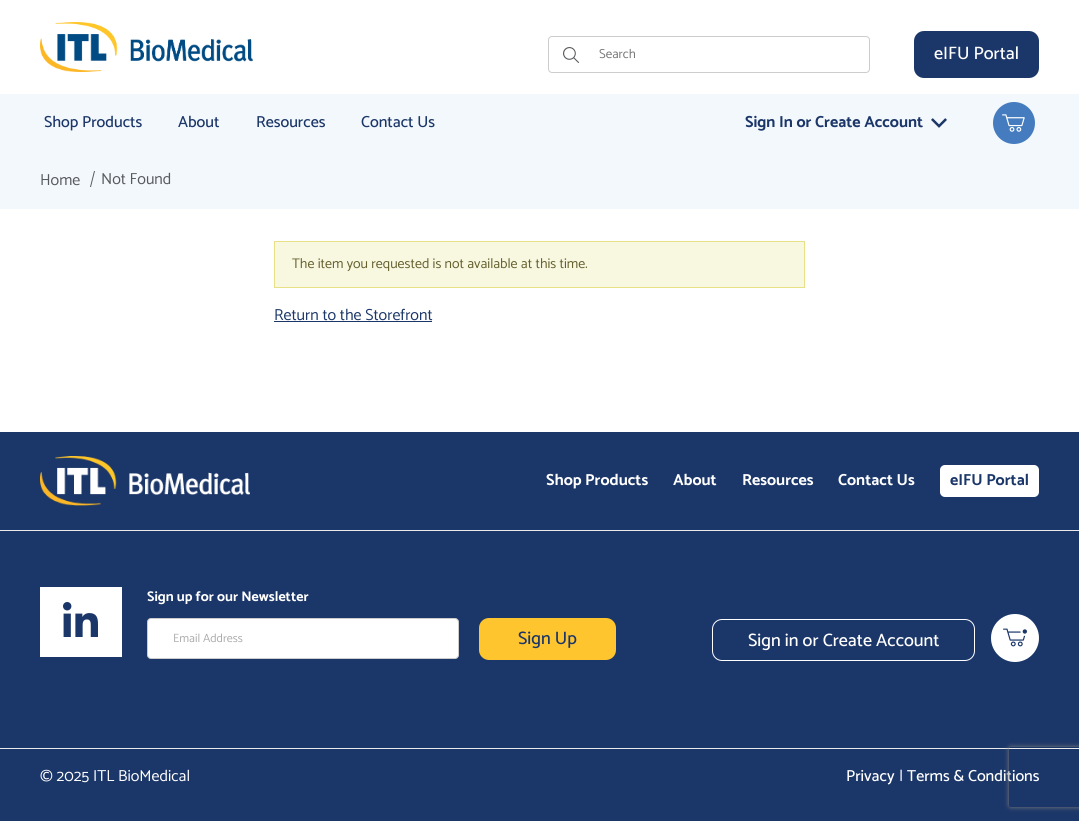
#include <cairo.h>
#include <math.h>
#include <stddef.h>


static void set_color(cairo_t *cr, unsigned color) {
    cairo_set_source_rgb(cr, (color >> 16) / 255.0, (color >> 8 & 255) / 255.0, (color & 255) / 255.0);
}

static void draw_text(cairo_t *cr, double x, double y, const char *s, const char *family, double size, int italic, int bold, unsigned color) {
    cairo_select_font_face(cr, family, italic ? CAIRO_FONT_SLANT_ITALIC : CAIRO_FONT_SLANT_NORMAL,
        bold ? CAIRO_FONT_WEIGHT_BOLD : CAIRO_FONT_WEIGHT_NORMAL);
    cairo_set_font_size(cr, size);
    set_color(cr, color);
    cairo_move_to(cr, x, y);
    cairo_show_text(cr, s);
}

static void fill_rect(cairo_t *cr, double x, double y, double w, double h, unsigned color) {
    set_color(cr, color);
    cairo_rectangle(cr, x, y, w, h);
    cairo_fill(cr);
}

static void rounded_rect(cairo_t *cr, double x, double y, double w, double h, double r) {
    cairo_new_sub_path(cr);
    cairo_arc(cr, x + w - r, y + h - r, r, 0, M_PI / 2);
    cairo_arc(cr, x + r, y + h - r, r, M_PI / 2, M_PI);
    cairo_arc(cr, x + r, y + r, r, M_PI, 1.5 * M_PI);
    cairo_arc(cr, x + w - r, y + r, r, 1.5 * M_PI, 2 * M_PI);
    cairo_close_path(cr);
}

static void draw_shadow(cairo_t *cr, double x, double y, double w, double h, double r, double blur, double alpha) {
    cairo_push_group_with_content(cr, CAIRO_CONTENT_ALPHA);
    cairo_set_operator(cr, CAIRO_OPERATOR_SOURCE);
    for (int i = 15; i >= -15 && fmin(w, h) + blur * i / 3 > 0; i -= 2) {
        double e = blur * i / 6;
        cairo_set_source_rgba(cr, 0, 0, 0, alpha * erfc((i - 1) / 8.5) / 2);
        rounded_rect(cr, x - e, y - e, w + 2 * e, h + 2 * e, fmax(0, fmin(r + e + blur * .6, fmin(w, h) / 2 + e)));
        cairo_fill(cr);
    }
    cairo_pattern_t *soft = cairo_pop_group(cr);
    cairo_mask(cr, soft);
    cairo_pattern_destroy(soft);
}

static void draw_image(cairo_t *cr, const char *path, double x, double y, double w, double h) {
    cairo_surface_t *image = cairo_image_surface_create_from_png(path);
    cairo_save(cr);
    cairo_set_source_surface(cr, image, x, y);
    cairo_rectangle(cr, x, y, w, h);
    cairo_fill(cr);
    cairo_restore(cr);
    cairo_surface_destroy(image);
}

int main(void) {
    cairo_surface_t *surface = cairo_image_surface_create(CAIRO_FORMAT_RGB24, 1079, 821);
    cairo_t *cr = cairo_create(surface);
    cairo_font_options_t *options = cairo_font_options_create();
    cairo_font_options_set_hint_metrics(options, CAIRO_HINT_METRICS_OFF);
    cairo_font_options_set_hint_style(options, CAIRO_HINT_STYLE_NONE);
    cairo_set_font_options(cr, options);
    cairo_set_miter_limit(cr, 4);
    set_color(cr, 0xFFFFFF);
    cairo_paint(cr);
    draw_image(cr, "assets/img1.png", 40, 22, 213, 50);
    rounded_rect(cr, 548.5, 36.5, 321, 36, 3.5);
    set_color(cr, 0xCCCCCC);
    cairo_set_line_width(cr, 1);
    cairo_stroke(cr);
    draw_image(cr, "assets/img2.png", 563, 47, 16, 16);
    draw_text(cr, 599, 58, "Search", "Catamaran", 13, 0, 0, 0x757575);
    set_color(cr, 0x1B3668);
    rounded_rect(cr, 914, 31, 125, 47, 10);
    cairo_fill(cr);
    draw_text(cr, 934, 59, "eIFU Portal", "Catamaran Medium", 18, 0, 0, 0xFFFFFF);
    fill_rect(cr, 0, 94, 1079, 115, 0xF3F8FC);
    draw_text(cr, 44, 127, "Shop Products", "Catamaran Medium", 16, 0, 0, 0x1B3668);
    draw_text(cr, 178, 127, "About", "Catamaran Medium", 16, 0, 0, 0x1B3668);
    draw_text(cr, 256, 127, "Resources", "Catamaran Medium", 16, 0, 0, 0x1B3668);
    draw_text(cr, 361, 127, "Contact Us", "Catamaran Medium", 16, 0, 0, 0x1B3668);
    draw_text(cr, 745, 127, "Sign In or Create Account", "Catamaran", 16, 0, 1, 0x1B3668);
    draw_image(cr, "assets/img3.png", 931, 118, 16, 10);
    set_color(cr, 0x457CBF);
    cairo_arc(cr, 1014, 123, 21, 0, 2 * M_PI);
    cairo_fill(cr);
    draw_image(cr, "assets/img4.png", 1002, 114, 23, 18);
    draw_text(cr, 40, 185, "Home", "Catamaran", 16, 0, 0, 0x575A5D);
    cairo_new_path(cr);
    cairo_move_to(cr, 94, 171);
    cairo_line_to(cr, 95, 171);
    cairo_line_to(cr, 91, 187);
    cairo_line_to(cr, 90, 187);
    cairo_close_path(cr);
    cairo_fill(cr);
    draw_text(cr, 101, 184, "Not Found", "Catamaran", 16, 0, 0, 0x575A5D);
    set_color(cr, 0xF8F8E1);
    cairo_rectangle(cr, 274.5, 241.5, 530, 46);
    cairo_fill_preserve(cr);
    set_color(cr, 0xE6E086);
    cairo_stroke(cr);
    draw_text(cr, 292, 268, "The item you requested is not available at this time.", "Catamaran", 14, 0, 0, 0x65602E);
    draw_text(cr, 274, 320, "Return to the Storefront", "Catamaran", 16, 0, 0, 0x1B3668);
    fill_rect(cr, 274, 321, 158, 1, 0x1B3668);
    fill_rect(cr, 0, 432, 1079, 389, 0x1B3668);
    fill_rect(cr, 0, 530, 1079, 1, 0xEAEAEA);
    draw_image(cr, "assets/img5.png", 40, 456, 210, 50);
    draw_text(cr, 546, 485, "Shop Products", "Catamaran", 16, 0, 1, 0xFFFFFF);
    draw_text(cr, 673, 485, "About", "Catamaran", 16, 0, 1, 0xFFFFFF);
    draw_text(cr, 742, 485, "Resources", "Catamaran", 16, 0, 1, 0xFFFFFF);
    draw_text(cr, 838, 485, "Contact Us", "Catamaran", 16, 0, 1, 0xFFFFFF);
    rounded_rect(cr, 940, 465, 99, 32, 5);
    cairo_fill(cr);
    draw_text(cr, 950, 485, "eIFU Portal", "Catamaran", 16, 0, 1, 0x1B3668);
    fill_rect(cr, 40, 587, 82, 70, 0xFFFFFF);
    draw_image(cr, "assets/img6.png", 63, 602, 35, 35);
    draw_text(cr, 147, 601, "Sign up for our Newsletter", "Catamaran", 14, 0, 1, 0xFFFFFF);
    rounded_rect(cr, 147.5, 618.5, 311, 40, 3.5);
    cairo_fill_preserve(cr);
    set_color(cr, 0xCCCCCC);
    cairo_stroke(cr);
    draw_text(cr, 173, 642, "Email Address", "Catamaran", 12, 0, 0, 0xACACAC);
    set_color(cr, 0xFFC52F);
    rounded_rect(cr, 479, 618, 137, 42, 10);
    cairo_fill(cr);
    draw_text(cr, 518, 644, "Sign Up", "Catamaran Medium", 18, 0, 0, 0x1B3668);
    rounded_rect(cr, 712.5, 619.5, 262, 41, 9.5);
    set_color(cr, 0xFFFFFF);
    cairo_stroke(cr);
    draw_text(cr, 748, 646, "Sign in or Create Account", "Catamaran Medium", 18, 0, 0, 0xFFFFFF);
    cairo_new_path(cr);
    cairo_arc(cr, 1015, 638, 24, 0, 2 * M_PI);
    cairo_fill(cr);
    draw_image(cr, "assets/img7.png", 1003, 628, 24, 19);
    fill_rect(cr, 0, 748, 1079, 1, 0xEAEAEA);
    draw_text(cr, 40, 781, "© 2025 ITL BioMedical", "Catamaran", 16, 0, 0, 0xFFFFFF);
    draw_text(cr, 846, 781, "Privacy", "Catamaran Medium", 16, 0, 0, 0xFFFFFF);
    draw_text(cr, 899, 781, "|", "Catamaran", 16, 0, 0, 0xFFFFFF);
    draw_text(cr, 907, 781, "Terms & Conditions", "Catamaran Medium", 16, 0, 0, 0xFFFFFF);
    cairo_save(cr);
    cairo_set_fill_rule(cr, CAIRO_FILL_RULE_EVEN_ODD);
    cairo_new_path(cr);
    cairo_move_to(cr, 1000, 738);
    cairo_line_to(cr, 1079, 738);
    cairo_line_to(cr, 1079, 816);
    cairo_line_to(cr, 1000, 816);
    cairo_close_path(cr);
    cairo_move_to(cr, 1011, 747);
    cairo_line_to(cr, 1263, 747);
    cairo_curve_to(cr, 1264, 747, 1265, 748, 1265, 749);
    cairo_line_to(cr, 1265, 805);
    cairo_curve_to(cr, 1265, 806, 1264, 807, 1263, 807);
    cairo_line_to(cr, 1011, 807);
    cairo_curve_to(cr, 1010, 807, 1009, 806, 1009, 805);
    cairo_line_to(cr, 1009, 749);
    cairo_curve_to(cr, 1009, 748, 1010, 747, 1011, 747);
    cairo_close_path(cr);
    cairo_clip(cr);
    set_color(cr, 0x808080);
    draw_shadow(cr, 1009, 747, 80, 60, 2, 2.5, 1);
    cairo_restore(cr);
    cairo_surface_write_to_png(surface, "output.png");
    cairo_font_options_destroy(options);
    cairo_destroy(cr);
    cairo_surface_destroy(surface);
    return 0;
}
